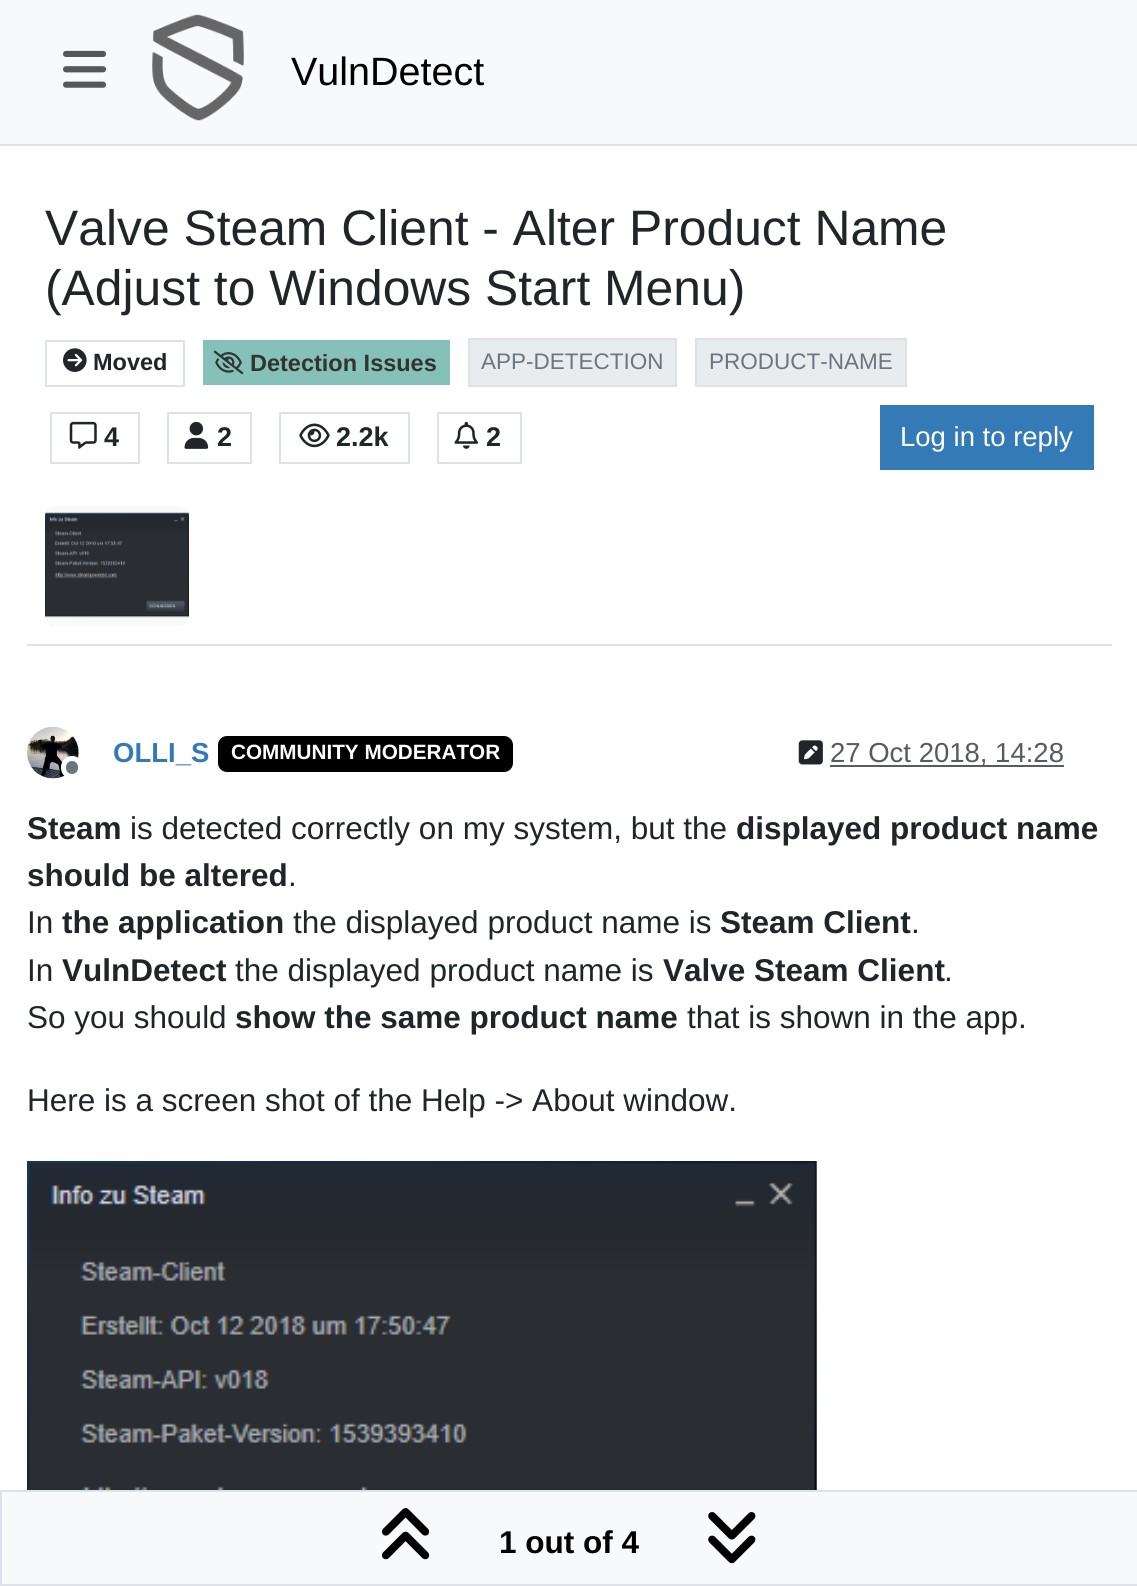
#include <cairo.h>
#include <math.h>
#include <stddef.h>


static void set_color(cairo_t *cr, unsigned color) {
    cairo_set_source_rgb(cr, (color >> 16) / 255.0, (color >> 8 & 255) / 255.0, (color & 255) / 255.0);
}

static void draw_text(cairo_t *cr, double x, double y, const char *s, const char *family, double size, int italic, int bold, unsigned color) {
    cairo_select_font_face(cr, family, italic ? CAIRO_FONT_SLANT_ITALIC : CAIRO_FONT_SLANT_NORMAL,
        bold ? CAIRO_FONT_WEIGHT_BOLD : CAIRO_FONT_WEIGHT_NORMAL);
    cairo_set_font_size(cr, size);
    set_color(cr, color);
    cairo_move_to(cr, x, y);
    cairo_show_text(cr, s);
}

static void fill_rect(cairo_t *cr, double x, double y, double w, double h, unsigned color) {
    set_color(cr, color);
    cairo_rectangle(cr, x, y, w, h);
    cairo_fill(cr);
}

static void rounded_rect(cairo_t *cr, double x, double y, double w, double h, double r) {
    cairo_new_sub_path(cr);
    cairo_arc(cr, x + w - r, y + h - r, r, 0, M_PI / 2);
    cairo_arc(cr, x + r, y + h - r, r, M_PI / 2, M_PI);
    cairo_arc(cr, x + r, y + r, r, M_PI, 1.5 * M_PI);
    cairo_arc(cr, x + w - r, y + r, r, 1.5 * M_PI, 2 * M_PI);
    cairo_close_path(cr);
}

static void draw_image(cairo_t *cr, const char *path, double x, double y, double w, double h) {
    cairo_surface_t *image = cairo_image_surface_create_from_png(path);
    cairo_save(cr);
    cairo_set_source_surface(cr, image, x, y);
    cairo_rectangle(cr, x, y, w, h);
    cairo_fill(cr);
    cairo_restore(cr);
    cairo_surface_destroy(image);
}

int main(void) {
    cairo_surface_t *surface = cairo_image_surface_create(CAIRO_FORMAT_RGB24, 1137, 1586);
    cairo_t *cr = cairo_create(surface);
    cairo_font_options_t *options = cairo_font_options_create();
    cairo_font_options_set_hint_metrics(options, CAIRO_HINT_METRICS_OFF);
    cairo_font_options_set_hint_style(options, CAIRO_HINT_STYLE_NONE);
    cairo_set_font_options(cr, options);
    cairo_set_miter_limit(cr, 4);
    set_color(cr, 0xFFFFFF);
    cairo_paint(cr);
    fill_rect(cr, 0, 0, 1137, 144, 0xF8F9FA);
    fill_rect(cr, 0, 144, 1137, 2, 0xDEE2E6);
    draw_image(cr, "assets/img1.png", 63, 50, 43, 38);
    draw_image(cr, "assets/img2.png", 152, 14, 92, 107);
    draw_text(cr, 291, 85, "VulnDetect", "Liberation Sans", 39.5, 0, 0, 0x000000);
    fill_rect(cr, 27, 644, 1085, 2, 0xDEE2E6);
    draw_text(cr, 45, 245, "Valve Steam Client - Alter Product Name", "Liberation Sans", 49.8, 0, 0, 0x212529);
    draw_text(cr, 45, 305, "(Adjust to Windows Start Menu)", "Liberation Sans", 49.8, 0, 0, 0x212529);
    cairo_rectangle(cr, 46, 341, 138, 45);
    set_color(cr, 0xDEE2E6);
    cairo_stroke(cr);
    draw_image(cr, "assets/img3.png", 63, 348, 24, 24);
    draw_text(cr, 93, 370, "Moved", "Liberation Sans", 23.5, 0, 1, 0x212529);
    fill_rect(cr, 203, 340, 247, 45, 0x86C1B9);
    draw_image(cr, "assets/img4.png", 213, 350, 31, 25);
    draw_text(cr, 250, 371, "Detection Issues", "Liberation Sans", 23.5, 0, 1, 0x333333);
    set_color(cr, 0xE9ECEF);
    cairo_rectangle(cr, 469, 339, 207, 47);
    cairo_fill_preserve(cr);
    set_color(cr, 0xDEE2E6);
    cairo_stroke(cr);
    draw_text(cr, 481, 369, "APP-DETECTION", "Liberation Sans", 22.5, 0, 0, 0x6C757D);
    set_color(cr, 0xE9ECEF);
    cairo_rectangle(cr, 696, 339, 210, 47);
    cairo_fill_preserve(cr);
    set_color(cr, 0xDEE2E6);
    cairo_stroke(cr);
    draw_text(cr, 709, 369, "PRODUCT-NAME", "Liberation Sans", 22.5, 0, 0, 0x6C757D);
    cairo_rectangle(cr, 51, 413, 88, 50);
    set_color(cr, 0xDEE2E6);
    cairo_stroke(cr);
    draw_image(cr, "assets/img5.png", 69, 421, 28, 28);
    draw_text(cr, 104, 446, "4", "Liberation Sans", 27, 0, 1, 0x212529);
    cairo_rectangle(cr, 168, 413, 83, 50);
    set_color(cr, 0xDEE2E6);
    cairo_stroke(cr);
    draw_image(cr, "assets/img6.png", 184, 421, 25, 28);
    draw_text(cr, 217, 446, "2", "Liberation Sans", 27, 0, 1, 0x212529);
    cairo_rectangle(cr, 280, 413, 129, 50);
    set_color(cr, 0xDEE2E6);
    cairo_stroke(cr);
    draw_image(cr, "assets/img7.png", 299, 423, 31, 25);
    draw_text(cr, 336, 446, "2.2k", "Liberation Sans", 27, 0, 1, 0x212529);
    cairo_rectangle(cr, 438, 413, 83, 50);
    set_color(cr, 0xDEE2E6);
    cairo_stroke(cr);
    draw_image(cr, "assets/img8.png", 454, 421, 25, 28);
    draw_text(cr, 486, 446, "2", "Liberation Sans", 27, 0, 1, 0x212529);
    fill_rect(cr, 880, 405, 214, 65, 0x337AB7);
    draw_text(cr, 900, 446, "Log in to reply", "Liberation Sans", 27.5, 0, 0, 0xFFFFFF);
    set_color(cr, 0xF8F9FA);
    rounded_rect(cr, 45, 506, 144, 120, 9);
    cairo_fill(cr);
    draw_image(cr, "assets/img9.png", 45, 512, 144, 106);
    draw_image(cr, "assets/img10.png", 27, 727, 52, 52);
    set_color(cr, 0x6C757D);
    rounded_rect(cr, 63.5, 758.5, 17, 18, 8.5);
    cairo_fill_preserve(cr);
    set_color(cr, 0xFFFFFF);
    cairo_set_line_width(cr, 5);
    cairo_stroke(cr);
    draw_text(cr, 113, 762, "OLLI_S", "Liberation Sans", 27.5, 0, 1, 0x337AB7);
    set_color(cr, 0x000000);
    rounded_rect(cr, 218, 736, 295, 36, 9);
    cairo_fill(cr);
    draw_text(cr, 231, 759, "COMMUNITY MODERATOR", "Liberation Sans", 20.7, 0, 1, 0xFFFFFF);
    draw_image(cr, "assets/img11.png", 798, 740, 25, 25);
    fill_rect(cr, 830, 765, 234, 2, 0x595C5F);
    draw_text(cr, 830, 762, "27 Oct 2018, 14:28", "Liberation Sans", 27.5, 0, 0, 0x585B5E);
    draw_text(cr, 27, 839, "Steam", "Liberation Sans", 31.5, 0, 1, 0x212529);
    draw_text(cr, 130, 839, "is detected correctly on my system, but the", "Liberation Sans", 31.5, 0, 0, 0x212529);
    draw_text(cr, 736, 839, "displayed product name", "Liberation Sans", 31.5, 0, 1, 0x212529);
    draw_text(cr, 27, 886, "should be altered", "Liberation Sans", 31.5, 0, 1, 0x212529);
    draw_text(cr, 288, 886, ".", "Liberation Sans", 31.5, 0, 0, 0x212529);
    draw_text(cr, 27, 933, "In", "Liberation Sans", 31.5, 0, 0, 0x212529);
    draw_text(cr, 62, 933, "the application", "Liberation Sans", 31.5, 0, 1, 0x212529);
    draw_text(cr, 293, 933, "the displayed product name is", "Liberation Sans", 31.5, 0, 0, 0x212529);
    draw_text(cr, 720, 933, "Steam Client", "Liberation Sans", 31.5, 0, 1, 0x212529);
    draw_text(cr, 911, 933, ".", "Liberation Sans", 31.5, 0, 0, 0x212529);
    draw_text(cr, 27, 981, "In", "Liberation Sans", 31.5, 0, 0, 0x212529);
    draw_text(cr, 62, 981, "VulnDetect", "Liberation Sans", 31.5, 0, 1, 0x212529);
    draw_text(cr, 235, 981, "the displayed product name is", "Liberation Sans", 31.5, 0, 0, 0x212529);
    draw_text(cr, 663, 981, "Valve Steam Client", "Liberation Sans", 31.5, 0, 1, 0x212529);
    draw_text(cr, 944, 981, ".", "Liberation Sans", 31.5, 0, 0, 0x212529);
    draw_text(cr, 27, 1028, "So you should", "Liberation Sans", 31.5, 0, 0, 0x212529);
    draw_text(cr, 235, 1028, "show the same product name", "Liberation Sans", 31.5, 0, 1, 0x212529);
    draw_text(cr, 687, 1028, "that is shown in the app.", "Liberation Sans", 31.5, 0, 0, 0x212529);
    draw_text(cr, 27, 1111, "Here is a screen shot of the Help -> About window.", "Liberation Sans", 31.5, 0, 0, 0x212529);
    draw_image(cr, "assets/img12.png", 27, 1161, 790, 329);
    set_color(cr, 0xF8F9FA);
    cairo_rectangle(cr, 1, 1491, 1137, 94);
    cairo_fill_preserve(cr);
    set_color(cr, 0xDEE2E6);
    cairo_set_line_width(cr, 2);
    cairo_stroke(cr);
    draw_image(cr, "assets/img13.png", 382, 1508, 48, 52);
    draw_text(cr, 499, 1553, "1 out of 4", "Liberation Sans", 31.5, 0, 1, 0x000000);
    draw_image(cr, "assets/img14.png", 708, 1512, 48, 52);
    cairo_surface_write_to_png(surface, "output.png");
    cairo_font_options_destroy(options);
    cairo_destroy(cr);
    cairo_surface_destroy(surface);
    return 0;
}
